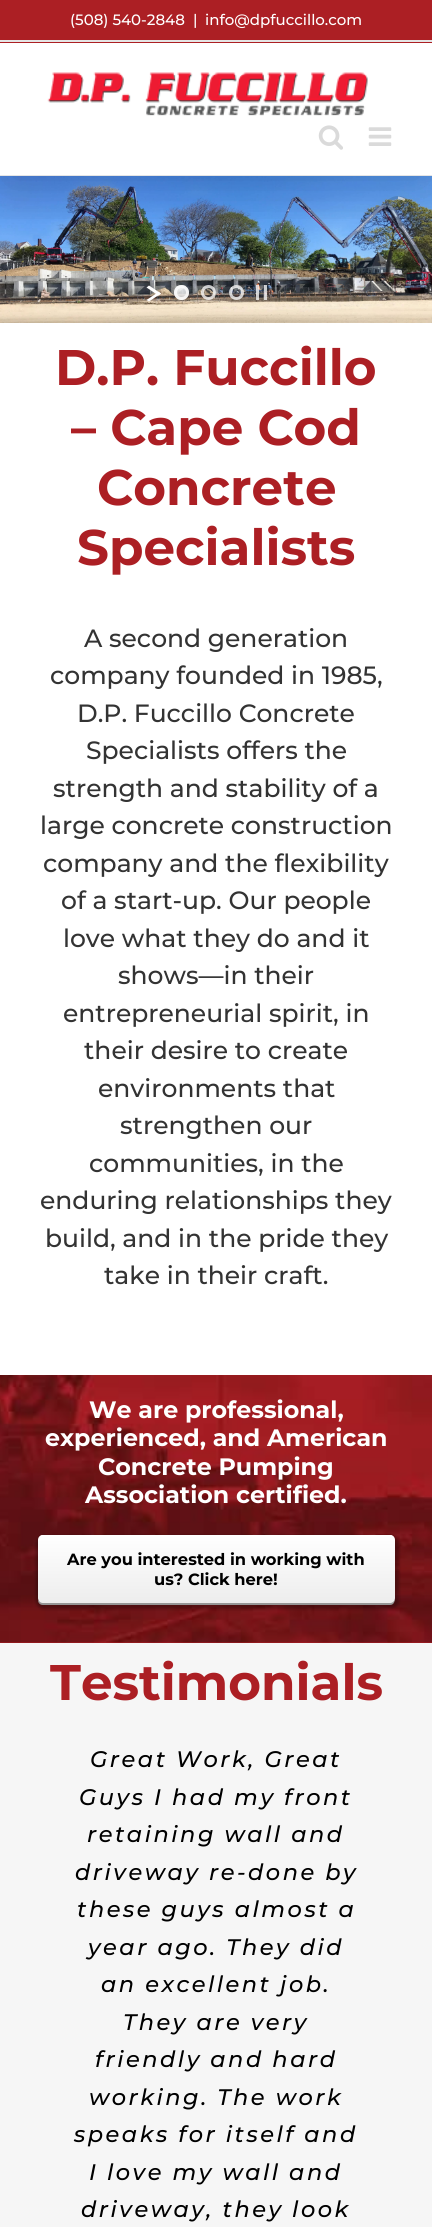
#include <cairo.h>
#include <math.h>
#include <stddef.h>


static void set_color(cairo_t *cr, unsigned color) {
    cairo_set_source_rgb(cr, (color >> 16) / 255.0, (color >> 8 & 255) / 255.0, (color & 255) / 255.0);
}

static void draw_text(cairo_t *cr, double x, double y, const char *s, const char *family, double size, int italic, int bold, unsigned color) {
    cairo_select_font_face(cr, family, italic ? CAIRO_FONT_SLANT_ITALIC : CAIRO_FONT_SLANT_NORMAL,
        bold ? CAIRO_FONT_WEIGHT_BOLD : CAIRO_FONT_WEIGHT_NORMAL);
    cairo_set_font_size(cr, size);
    set_color(cr, color);
    cairo_move_to(cr, x, y);
    cairo_show_text(cr, s);
}

static void draw_spaced(cairo_t *cr, double x, double y, const char *s, double letter, double word) {
    cairo_move_to(cr, x, y);
    while (*s) {
        char ch[5] = {0};
        int n = 0;
        do ch[n++] = *s++; while ((*s & 0xC0) == 0x80);
        cairo_show_text(cr, ch);
        cairo_rel_move_to(cr, letter + word * (*ch == ' '), 0);
    }
}

static void fill_rect(cairo_t *cr, double x, double y, double w, double h, unsigned color) {
    set_color(cr, color);
    cairo_rectangle(cr, x, y, w, h);
    cairo_fill(cr);
}

static void rounded_rect(cairo_t *cr, double x, double y, double w, double h, double r) {
    cairo_new_sub_path(cr);
    cairo_arc(cr, x + w - r, y + h - r, r, 0, M_PI / 2);
    cairo_arc(cr, x + r, y + h - r, r, M_PI / 2, M_PI);
    cairo_arc(cr, x + r, y + r, r, M_PI, 1.5 * M_PI);
    cairo_arc(cr, x + w - r, y + r, r, 1.5 * M_PI, 2 * M_PI);
    cairo_close_path(cr);
}

static void draw_shadow(cairo_t *cr, double x, double y, double w, double h, double r, double blur, double alpha) {
    cairo_push_group_with_content(cr, CAIRO_CONTENT_ALPHA);
    cairo_set_operator(cr, CAIRO_OPERATOR_SOURCE);
    for (int i = 15; i >= -15 && fmin(w, h) + blur * i / 3 > 0; i -= 2) {
        double e = blur * i / 6;
        cairo_set_source_rgba(cr, 0, 0, 0, alpha * erfc((i - 1) / 8.5) / 2);
        rounded_rect(cr, x - e, y - e, w + 2 * e, h + 2 * e, fmax(0, fmin(r + e + blur * .6, fmin(w, h) / 2 + e)));
        cairo_fill(cr);
    }
    cairo_pattern_t *soft = cairo_pop_group(cr);
    cairo_mask(cr, soft);
    cairo_pattern_destroy(soft);
}

static void draw_image(cairo_t *cr, const char *path, double x, double y, double w, double h) {
    cairo_surface_t *image = cairo_image_surface_create_from_png(path);
    cairo_save(cr);
    cairo_set_source_surface(cr, image, x, y);
    cairo_rectangle(cr, x, y, w, h);
    cairo_fill(cr);
    cairo_restore(cr);
    cairo_surface_destroy(image);
}

int main(void) {
    cairo_surface_t *surface = cairo_image_surface_create(CAIRO_FORMAT_RGB24, 432, 2227);
    cairo_t *cr = cairo_create(surface);
    cairo_font_options_t *options = cairo_font_options_create();
    cairo_font_options_set_hint_metrics(options, CAIRO_HINT_METRICS_OFF);
    cairo_font_options_set_hint_style(options, CAIRO_HINT_STYLE_NONE);
    cairo_set_font_options(cr, options);
    cairo_set_miter_limit(cr, 4);
    cairo_pattern_t *gradient;
    set_color(cr, 0xFFFFFF);
    cairo_paint(cr);
    draw_image(cr, "assets/img4.png", 0, 176, 432, 147);
    cairo_arc(cr, 398, 211, 13.5, 0, 2 * M_PI);
    cairo_set_source_rgba(cr, 0, 0, 0, 0.13);
    cairo_set_line_width(cr, 3);
    cairo_stroke(cr);
    cairo_save(cr);
    cairo_rectangle(cr, 398, 196, 15, 30);
    cairo_clip(cr);
    cairo_new_path(cr);
    cairo_move_to(cr, 392.5, 191);
    cairo_line_to(cr, 405.5, 199);
    cairo_line_to(cr, 389.5, 224.5);
    cairo_line_to(cr, 377, 216.5);
    cairo_close_path(cr);
    cairo_clip(cr);
    cairo_new_path(cr);
    cairo_move_to(cr, 404.5, 200);
    cairo_curve_to(cr, 420, 209.5, 406, 233, 390.5, 223.5);
    cairo_curve_to(cr, 375, 214, 389, 190.5, 404.5, 200);
    cairo_close_path(cr);
    cairo_set_source_rgba(cr, 1, 1, 1, 0.65);
    cairo_set_line_width(cr, 2.5);
    cairo_stroke(cr);
    cairo_restore(cr);
    cairo_save(cr);
    cairo_rectangle(cr, 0, 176, 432, 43);
    cairo_clip(cr);
    set_color(cr, 0x000000);
    draw_shadow(cr, 3, 15, 427, 171, 0, 31, 0.14);
    cairo_restore(cr);
    fill_rect(cr, 0, 0, 432, 43, 0xAC1F24);
    fill_rect(cr, 0, 40, 432, 2, 0xE5E5E5);
    draw_text(cr, 70, 25, "(508) 540-2848", "Montserrat Medium", 15, 0, 0, 0xFFFFFF);
    draw_text(cr, 193, 25, "|", "Montserrat Medium", 15, 0, 0, 0xFFFFFF);
    draw_text(cr, 205, 25, "info@dpfuccillo.com", "Montserrat Medium", 15, 0, 0, 0xFFFFFF);
    fill_rect(cr, 0, 175, 432, 1, 0xE5E5E5);
    draw_image(cr, "assets/img1.png", 47, 72, 321, 44);
    draw_image(cr, "assets/img2.png", 318, 125, 25, 25);
    draw_image(cr, "assets/img3.png", 368, 127, 24, 19);
    set_color(cr, 0xFFFFFF);
    cairo_new_path(cr);
    cairo_move_to(cr, 149, 285.5);
    cairo_line_to(cr, 161, 293.5);
    cairo_line_to(cr, 158.5, 295.5);
    cairo_line_to(cr, 146.5, 287.5);
    cairo_close_path(cr);
    cairo_fill(cr);
    cairo_new_path(cr);
    cairo_move_to(cr, 158.5, 292);
    cairo_line_to(cr, 161, 293.5);
    cairo_line_to(cr, 149, 301.5);
    cairo_line_to(cr, 146.5, 300);
    cairo_close_path(cr);
    cairo_fill(cr);
    cairo_set_source_rgba(cr, 1, 1, 1, 0.75);
    cairo_arc(cr, 181.5, 292.5, 7.5, 0, 2 * M_PI);
    cairo_fill(cr);
    cairo_arc(cr, 181.5, 292.5, 6, 0, 2 * M_PI);
    cairo_stroke(cr);
    cairo_arc(cr, 208.5, 292.5, 6, 0, 2 * M_PI);
    cairo_stroke(cr);
    cairo_arc(cr, 236.5, 292.5, 6, 0, 2 * M_PI);
    cairo_stroke(cr);
    cairo_rectangle(cr, 264, 285, 3, 15);
    cairo_fill(cr);
    cairo_rectangle(cr, 256, 285, 3, 15);
    cairo_fill(cr);
    draw_text(cr, 55, 385, "D.P. Fuccillo", "Montserrat", 50, 0, 1, 0xAC1F24);
    draw_text(cr, 71, 445, "– Cape Cod", "Montserrat", 50, 0, 1, 0xAC1F24);
    draw_text(cr, 97, 505, "Concrete", "Montserrat", 50, 0, 1, 0xAC1F24);
    draw_text(cr, 77, 565, "Specialists", "Montserrat", 50, 0, 1, 0xAC1F24);
    draw_text(cr, 84, 647, "A second generation", "Montserrat Medium", 25, 0, 0, 0x333333);
    draw_text(cr, 50, 684, "company founded in 1985,", "Montserrat Medium", 25, 0, 0, 0x333333);
    draw_text(cr, 77, 722, "D.P. Fuccillo Concrete", "Montserrat Medium", 25, 0, 0, 0x333333);
    draw_text(cr, 86, 759, "Specialists offers the", "Montserrat Medium", 25, 0, 0, 0x333333);
    draw_text(cr, 53, 797, "strength and stability of a", "Montserrat Medium", 25, 0, 0, 0x333333);
    draw_text(cr, 40, 834, "large concrete construction", "Montserrat Medium", 25, 0, 0, 0x333333);
    draw_text(cr, 43, 872, "company and the flexibility", "Montserrat Medium", 25, 0, 0, 0x333333);
    draw_text(cr, 61, 909, "of a start-up. Our people", "Montserrat Medium", 25, 0, 0, 0x333333);
    draw_text(cr, 63, 947, "love what they do and it", "Montserrat Medium", 25, 0, 0, 0x333333);
    draw_text(cr, 118, 984, "shows—in their", "Montserrat Medium", 25, 0, 0, 0x333333);
    draw_text(cr, 63, 1022, "entrepreneurial spirit, in", "Montserrat Medium", 25, 0, 0, 0x333333);
    draw_text(cr, 84, 1059, "their desire to create", "Montserrat Medium", 25, 0, 0, 0x333333);
    draw_text(cr, 98, 1097, "environments that", "Montserrat Medium", 25, 0, 0, 0x333333);
    draw_text(cr, 120, 1134, "strengthen our", "Montserrat Medium", 25, 0, 0, 0x333333);
    draw_text(cr, 89, 1172, "communities, in the", "Montserrat Medium", 25, 0, 0, 0x333333);
    draw_text(cr, 40, 1209, "enduring relationships they", "Montserrat Medium", 25, 0, 0, 0x333333);
    draw_text(cr, 45, 1247, "build, and in the pride they", "Montserrat Medium", 25, 0, 0, 0x333333);
    draw_text(cr, 104, 1284, "take in their craft.", "Montserrat Medium", 25, 0, 0, 0x333333);
    fill_rect(cr, 0, 1642, 432, 1, 0xAC1F24);
    draw_image(cr, "assets/img5.png", 0, 1375, 432, 268);
    draw_text(cr, 89, 1418, "We are professional,", "Montserrat", 23.75, 0, 1, 0xFFFFFF);
    draw_text(cr, 45, 1446, "experienced, and American", "Montserrat", 23.75, 0, 1, 0xFFFFFF);
    draw_text(cr, 98, 1475, "Concrete Pumping", "Montserrat", 23.75, 0, 1, 0xFFFFFF);
    draw_text(cr, 85, 1503, "Association certified.", "Montserrat", 23.75, 0, 1, 0xFFFFFF);
    set_color(cr, 0x000000);
    draw_shadow(cr, 36, 1536, 363, 73, 8, 1.5, 0.3);
    set_color(cr, 0x969696);
    cairo_new_path(cr);
    cairo_move_to(cr, 38, 1600);
    cairo_curve_to(cr, 38, 1603, 40, 1605, 43, 1605);
    cairo_line_to(cr, 390, 1605);
    cairo_curve_to(cr, 394, 1605, 395, 1601, 395, 1598);
    cairo_curve_to(cr, 395, 1600, 393, 1602, 390, 1602);
    cairo_line_to(cr, 42, 1602);
    cairo_curve_to(cr, 41, 1602, 39, 1601, 38, 1600);
    cairo_close_path(cr);
    cairo_fill(cr);
    gradient = cairo_pattern_create_linear(216, 1535, 216, 1603);
    cairo_pattern_add_color_stop_rgba(gradient, 0, 1, 1, 1, 1);
    cairo_pattern_add_color_stop_rgba(gradient, 1, 0.929, 0.929, 0.929, 1);
    cairo_set_source(cr, gradient);
    cairo_pattern_destroy(gradient);
    rounded_rect(cr, 38, 1535, 357, 68, 5);
    cairo_fill(cr);
    set_color(cr, 0xFFFFFF);
    cairo_new_path(cr);
    cairo_move_to(cr, 42, 1536);
    cairo_line_to(cr, 390, 1536);
    cairo_curve_to(cr, 393, 1536, 395, 1538, 395, 1541);
    cairo_curve_to(cr, 395, 1538, 393, 1535, 390, 1535);
    cairo_line_to(cr, 43, 1535);
    cairo_curve_to(cr, 40, 1535, 38, 1538, 38, 1541);
    cairo_curve_to(cr, 38, 1538, 40, 1536, 42, 1536);
    cairo_close_path(cr);
    cairo_fill(cr);
    draw_text(cr, 67, 1565, "Are you interested in working with", "Montserrat", 16.25, 0, 1, 0x000000);
    draw_text(cr, 154, 1585, "us? Click here!", "Montserrat", 16.25, 0, 1, 0x000000);
    fill_rect(cr, 0, 1643, 432, 584, 0xF6F6F6);
    draw_text(cr, 50, 1700, "Testimonials", "Montserrat", 50, 0, 1, 0xAC1F24);
    cairo_select_font_face(cr, "Montserrat Medium", CAIRO_FONT_SLANT_ITALIC, CAIRO_FONT_WEIGHT_NORMAL);
    cairo_set_font_size(cr, 22.5);
    set_color(cr, 0x000000);
    draw_spaced(cr, 90, 1767, "Great Work, Great", 2.5, 0);
    draw_spaced(cr, 79, 1805, "Guys I had my front", 2.5, 0);
    draw_spaced(cr, 87, 1842, "retaining wall and", 2.5, 0);
    draw_spaced(cr, 75, 1880, "driveway re-done by", 2.5, 0);
    draw_spaced(cr, 77, 1917, "these guys almost a", 2.5, 0);
    draw_spaced(cr, 88, 1955, "year ago. They did", 2.5, 0);
    draw_spaced(cr, 101, 1992, "an excellent job.", 2.5, 0);
    draw_spaced(cr, 123, 2030, "They are very", 2.5, 0);
    draw_spaced(cr, 95, 2067, "friendly and hard", 2.5, 0);
    draw_spaced(cr, 89, 2105, "working. The work", 2.5, 0);
    draw_spaced(cr, 74, 2142, "speaks for itself and", 2.5, 0);
    draw_spaced(cr, 89, 2180, "I love my wall and", 2.5, 0);
    draw_spaced(cr, 81, 2217, "driveway, they look", 2.5, 0);
    cairo_surface_write_to_png(surface, "output.png");
    cairo_font_options_destroy(options);
    cairo_destroy(cr);
    cairo_surface_destroy(surface);
    return 0;
}
